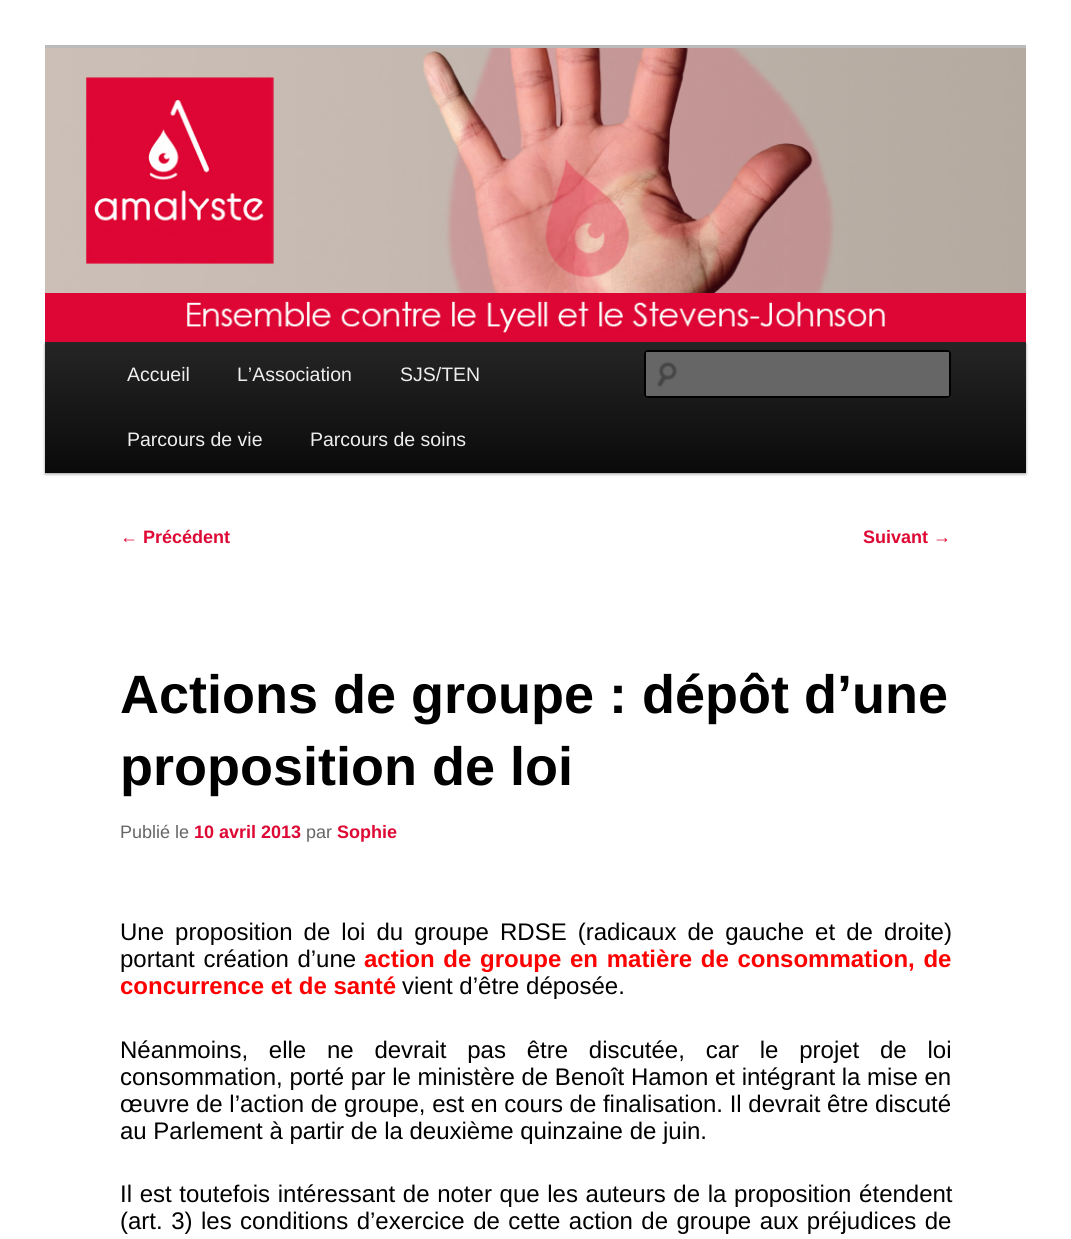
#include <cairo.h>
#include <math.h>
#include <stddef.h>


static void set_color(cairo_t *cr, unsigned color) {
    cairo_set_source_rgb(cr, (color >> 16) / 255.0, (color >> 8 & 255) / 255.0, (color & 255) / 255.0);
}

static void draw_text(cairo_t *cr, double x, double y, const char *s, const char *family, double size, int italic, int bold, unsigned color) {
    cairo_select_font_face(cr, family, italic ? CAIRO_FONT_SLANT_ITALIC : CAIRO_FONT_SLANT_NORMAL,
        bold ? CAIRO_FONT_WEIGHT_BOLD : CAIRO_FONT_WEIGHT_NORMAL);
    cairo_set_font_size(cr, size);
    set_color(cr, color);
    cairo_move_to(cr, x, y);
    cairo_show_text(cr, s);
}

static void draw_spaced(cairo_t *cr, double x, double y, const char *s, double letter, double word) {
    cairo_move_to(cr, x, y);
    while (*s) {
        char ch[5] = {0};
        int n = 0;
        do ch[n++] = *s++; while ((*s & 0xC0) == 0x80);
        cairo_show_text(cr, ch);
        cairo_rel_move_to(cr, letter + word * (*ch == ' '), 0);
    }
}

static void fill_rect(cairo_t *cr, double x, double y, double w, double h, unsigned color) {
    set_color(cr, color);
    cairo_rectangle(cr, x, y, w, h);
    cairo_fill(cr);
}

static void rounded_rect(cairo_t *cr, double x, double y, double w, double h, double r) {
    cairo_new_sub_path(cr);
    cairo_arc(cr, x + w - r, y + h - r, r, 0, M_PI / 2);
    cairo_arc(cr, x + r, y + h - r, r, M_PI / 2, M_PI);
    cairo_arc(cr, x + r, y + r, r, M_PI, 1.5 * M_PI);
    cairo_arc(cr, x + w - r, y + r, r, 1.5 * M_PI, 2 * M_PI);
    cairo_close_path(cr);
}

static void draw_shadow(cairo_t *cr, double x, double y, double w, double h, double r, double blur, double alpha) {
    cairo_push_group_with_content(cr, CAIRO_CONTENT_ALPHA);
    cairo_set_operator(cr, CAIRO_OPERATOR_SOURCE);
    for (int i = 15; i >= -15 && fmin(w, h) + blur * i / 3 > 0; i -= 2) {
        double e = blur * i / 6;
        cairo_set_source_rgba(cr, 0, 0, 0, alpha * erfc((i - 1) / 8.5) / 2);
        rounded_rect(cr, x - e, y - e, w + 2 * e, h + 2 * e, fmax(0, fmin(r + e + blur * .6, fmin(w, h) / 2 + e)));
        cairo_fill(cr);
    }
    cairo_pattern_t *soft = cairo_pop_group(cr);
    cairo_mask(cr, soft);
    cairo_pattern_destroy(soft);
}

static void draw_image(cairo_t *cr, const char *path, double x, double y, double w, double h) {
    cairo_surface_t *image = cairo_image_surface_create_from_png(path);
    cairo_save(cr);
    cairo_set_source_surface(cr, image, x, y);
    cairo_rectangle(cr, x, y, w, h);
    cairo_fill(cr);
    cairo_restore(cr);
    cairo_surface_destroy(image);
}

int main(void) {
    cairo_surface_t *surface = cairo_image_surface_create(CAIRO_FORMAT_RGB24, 1071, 1239);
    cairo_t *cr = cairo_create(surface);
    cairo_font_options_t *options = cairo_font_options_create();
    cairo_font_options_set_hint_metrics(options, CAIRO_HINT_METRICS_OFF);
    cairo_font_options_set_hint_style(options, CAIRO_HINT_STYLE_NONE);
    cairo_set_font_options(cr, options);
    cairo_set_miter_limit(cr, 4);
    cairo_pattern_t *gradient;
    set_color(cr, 0xFFFFFF);
    cairo_paint(cr);
    fill_rect(cr, 45, 45, 981, 3, 0xBBBBBB);
    set_color(cr, 0x000000);
    draw_shadow(cr, 45, 344, 981, 130, 0, 1.5, 0.4);
    draw_image(cr, "assets/img1.png", 45, 48, 981, 294);
    gradient = cairo_pattern_create_linear(536, 342, 536, 473);
    cairo_pattern_add_color_stop_rgba(gradient, 0, 0.145, 0.145, 0.145, 1);
    cairo_pattern_add_color_stop_rgba(gradient, 1, 0.039, 0.039, 0.039, 1);
    cairo_set_source(cr, gradient);
    cairo_pattern_destroy(gradient);
    cairo_rectangle(cr, 45, 342, 981, 131);
    cairo_fill(cr);
    draw_text(cr, 127, 381, "Accueil", "Liberation Sans", 19.5, 0, 0, 0xEEEEEE);
    draw_text(cr, 237, 381, "L’Association", "Liberation Sans", 19.5, 0, 0, 0xEEEEEE);
    draw_text(cr, 400, 381, "SJS/TEN", "Liberation Sans", 19.5, 0, 0, 0xEEEEEE);
    draw_text(cr, 127, 446, "Parcours de vie", "Liberation Sans", 19.5, 0, 0, 0xEEEEEE);
    draw_text(cr, 310, 446, "Parcours de soins", "Liberation Sans", 19.5, 0, 0, 0xEEEEEE);
    set_color(cr, 0x666666);
    rounded_rect(cr, 644, 350, 307, 48, 3);
    cairo_fill(cr);
    draw_image(cr, "assets/img2.png", 657, 362, 20, 25);
    rounded_rect(cr, 645, 351, 305, 46, 2);
    set_color(cr, 0x000000);
    cairo_stroke(cr);
    draw_text(cr, 120, 543, "←", "Liberation Sans", 18, 0, 0, 0xDE0834);
    draw_text(cr, 143, 543, "Précédent", "Liberation Sans", 18, 0, 1, 0xDE0834);
    draw_text(cr, 863, 543, "Suivant", "Liberation Sans", 18, 0, 1, 0xDE0834);
    draw_text(cr, 933, 543, "→", "Liberation Sans", 18, 0, 0, 0xDE0834);
    draw_text(cr, 120, 713, "Actions de groupe : dépôt d’une", "Liberation Sans", 54, 0, 1, 0x000000);
    draw_text(cr, 120, 785, "proposition de loi", "Liberation Sans", 54, 0, 1, 0x000000);
    draw_text(cr, 120, 838, "Publié le", "Liberation Sans", 18, 0, 0, 0x666666);
    draw_text(cr, 194, 838, "10 avril 2013", "Liberation Sans", 18, 0, 1, 0xDE0834);
    draw_text(cr, 306, 838, "par", "Liberation Sans", 18, 0, 0, 0x666666);
    draw_text(cr, 337, 838, "Sophie", "Liberation Sans", 18, 0, 1, 0xDE0834);
    cairo_select_font_face(cr, "Liberation Sans", CAIRO_FONT_SLANT_NORMAL, CAIRO_FONT_WEIGHT_NORMAL);
    cairo_set_font_size(cr, 24);
    set_color(cr, 0x000000);
    draw_spaced(cr, 120, 940, "Une proposition de loi du groupe RDSE (radicaux de gauche et de droite)", 0, 4.4);
    draw_spaced(cr, 120, 967, "portant création d’une", 0, 2);
    cairo_select_font_face(cr, "Liberation Sans", CAIRO_FONT_SLANT_NORMAL, CAIRO_FONT_WEIGHT_BOLD);
    set_color(cr, 0xFF0000);
    draw_spaced(cr, 364, 967, "action de groupe en matière de consommation, de", 0, 2);
    draw_text(cr, 120, 994, "concurrence et de santé", "Liberation Sans", 24, 0, 1, 0xFF0000);
    draw_text(cr, 402, 994, "vient d’être déposée.", "Liberation Sans", 24, 0, 0, 0x000000);
    draw_spaced(cr, 120, 1058, "Néanmoins, elle ne devrait pas être discutée, car le projet de loi", 0, 14.1);
    draw_text(cr, 120, 1085, "consommation, porté par le ministère de Benoît Hamon et intégrant la mise en", "Liberation Sans", 24, 0, 0, 0x000000);
    draw_text(cr, 120, 1112, "œuvre de l’action de groupe, est en cours de finalisation. Il devrait être discuté", "Liberation Sans", 24, 0, 0, 0x000000);
    draw_text(cr, 120, 1139, "au Parlement à partir de la deuxième quinzaine de juin.", "Liberation Sans", 24, 0, 0, 0x000000);
    draw_spaced(cr, 120, 1202, "Il est toutefois intéressant de noter que les auteurs de la proposition étendent", 0, 1);
    draw_spaced(cr, 120, 1229, "(art. 3) les conditions d’exercice de cette action de groupe aux préjudices de", 0, 1.8);
    cairo_surface_write_to_png(surface, "output.png");
    cairo_font_options_destroy(options);
    cairo_destroy(cr);
    cairo_surface_destroy(surface);
    return 0;
}
